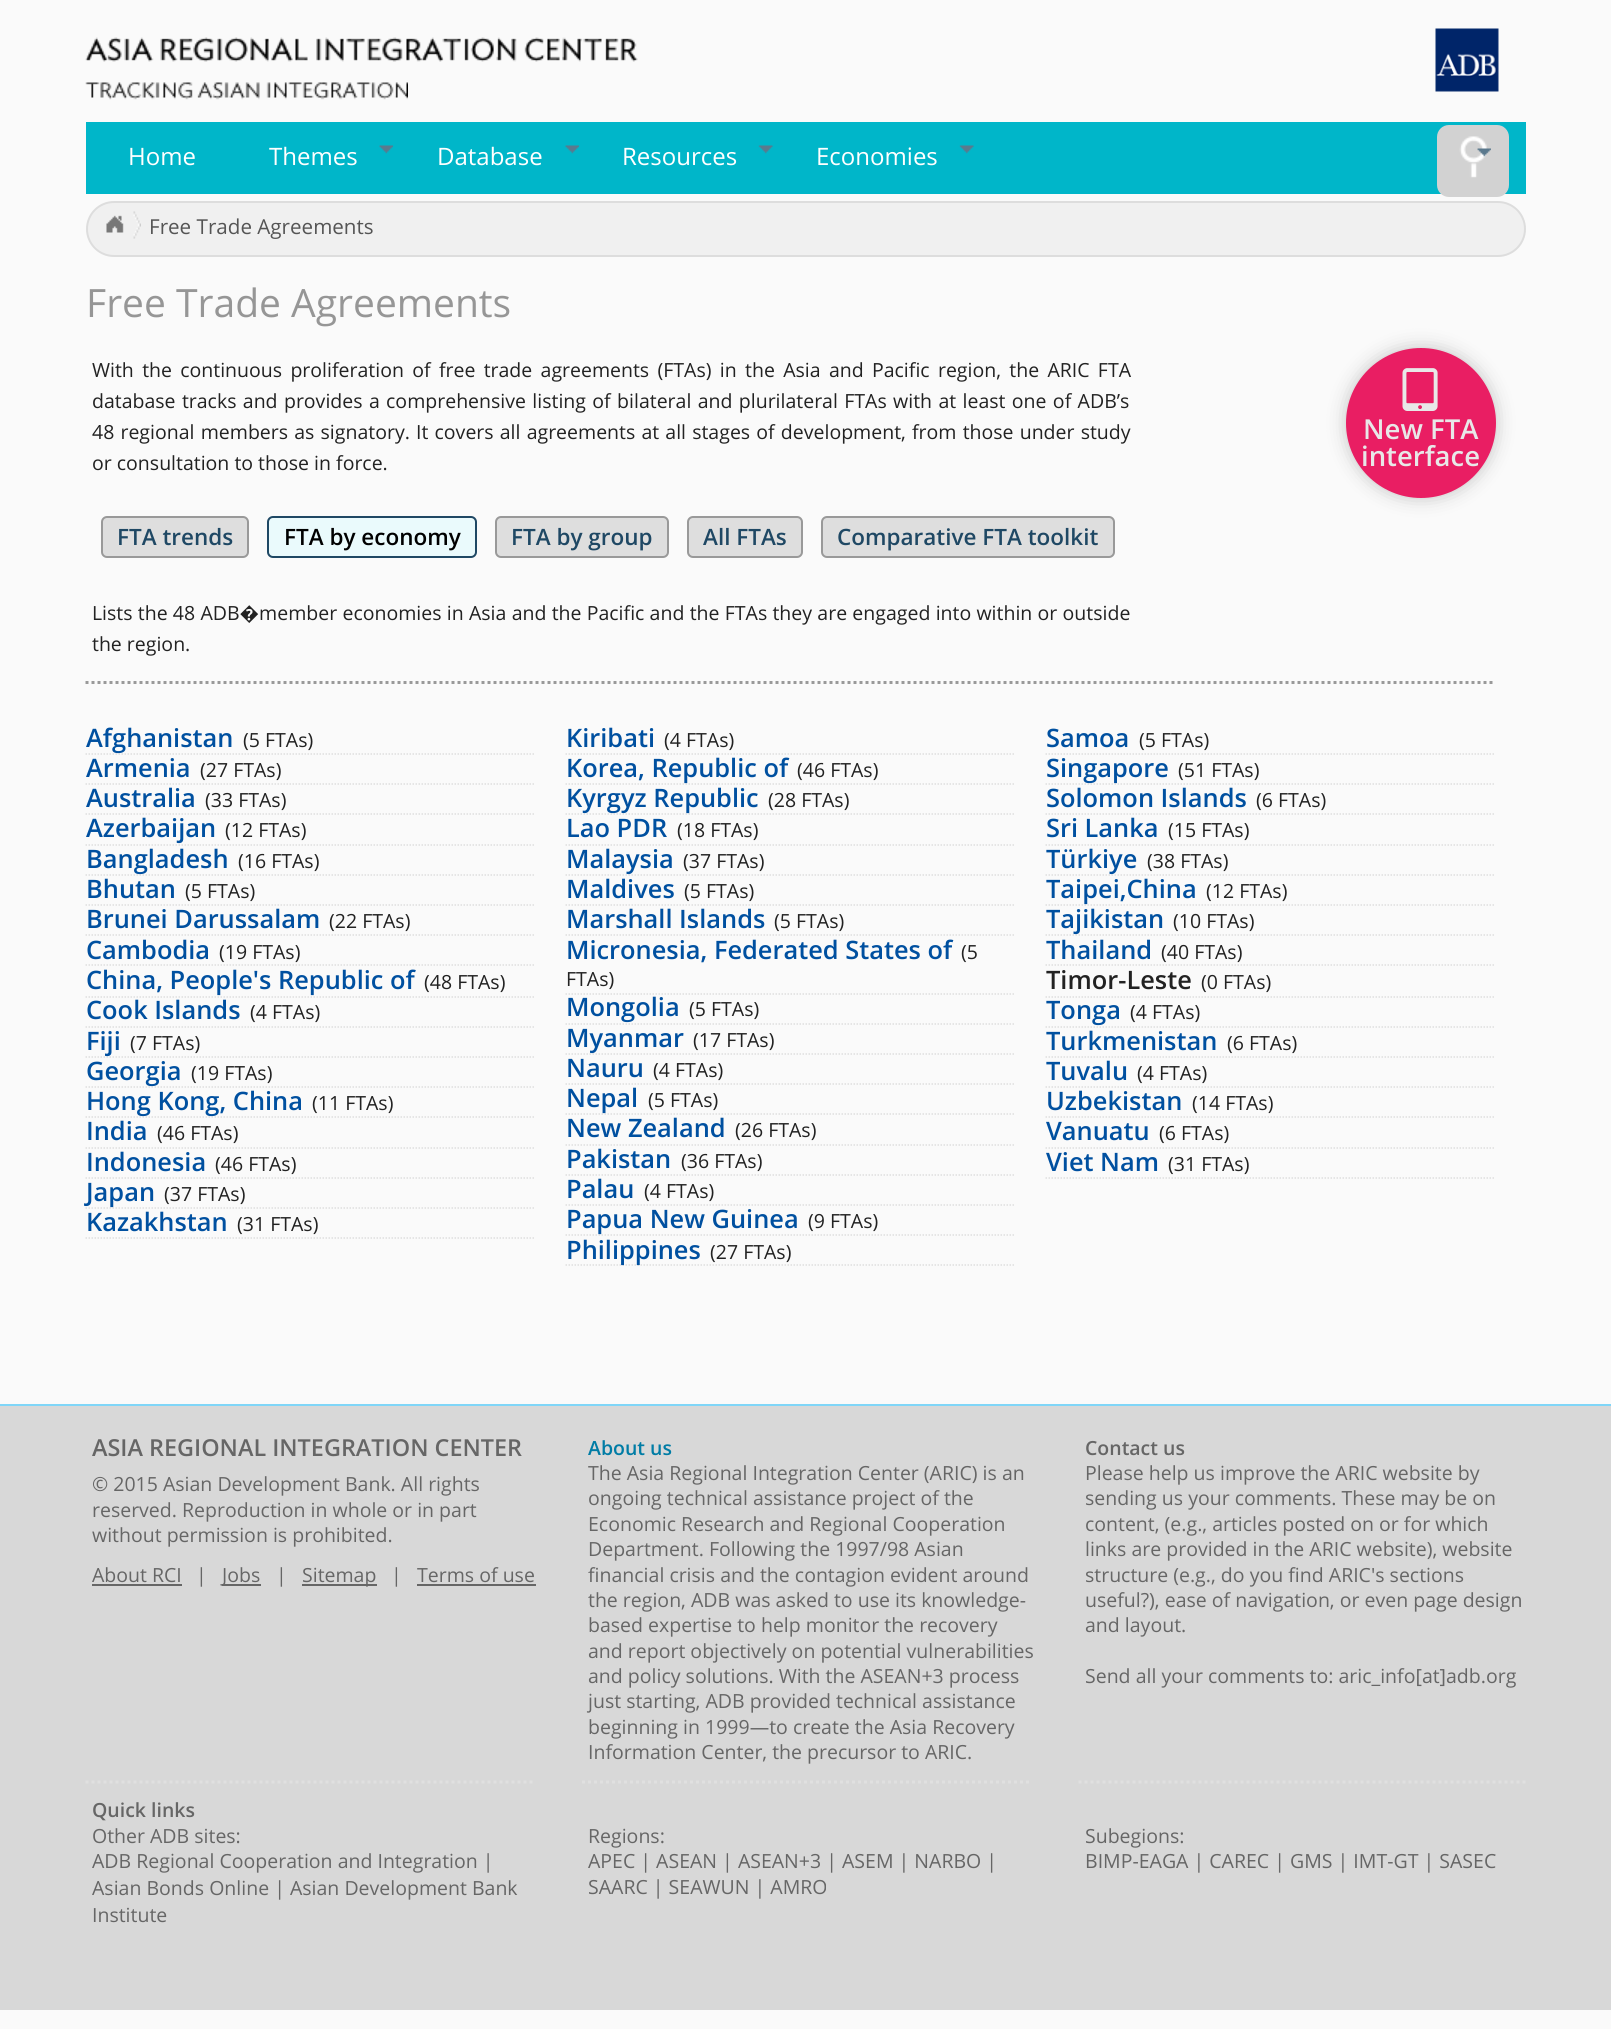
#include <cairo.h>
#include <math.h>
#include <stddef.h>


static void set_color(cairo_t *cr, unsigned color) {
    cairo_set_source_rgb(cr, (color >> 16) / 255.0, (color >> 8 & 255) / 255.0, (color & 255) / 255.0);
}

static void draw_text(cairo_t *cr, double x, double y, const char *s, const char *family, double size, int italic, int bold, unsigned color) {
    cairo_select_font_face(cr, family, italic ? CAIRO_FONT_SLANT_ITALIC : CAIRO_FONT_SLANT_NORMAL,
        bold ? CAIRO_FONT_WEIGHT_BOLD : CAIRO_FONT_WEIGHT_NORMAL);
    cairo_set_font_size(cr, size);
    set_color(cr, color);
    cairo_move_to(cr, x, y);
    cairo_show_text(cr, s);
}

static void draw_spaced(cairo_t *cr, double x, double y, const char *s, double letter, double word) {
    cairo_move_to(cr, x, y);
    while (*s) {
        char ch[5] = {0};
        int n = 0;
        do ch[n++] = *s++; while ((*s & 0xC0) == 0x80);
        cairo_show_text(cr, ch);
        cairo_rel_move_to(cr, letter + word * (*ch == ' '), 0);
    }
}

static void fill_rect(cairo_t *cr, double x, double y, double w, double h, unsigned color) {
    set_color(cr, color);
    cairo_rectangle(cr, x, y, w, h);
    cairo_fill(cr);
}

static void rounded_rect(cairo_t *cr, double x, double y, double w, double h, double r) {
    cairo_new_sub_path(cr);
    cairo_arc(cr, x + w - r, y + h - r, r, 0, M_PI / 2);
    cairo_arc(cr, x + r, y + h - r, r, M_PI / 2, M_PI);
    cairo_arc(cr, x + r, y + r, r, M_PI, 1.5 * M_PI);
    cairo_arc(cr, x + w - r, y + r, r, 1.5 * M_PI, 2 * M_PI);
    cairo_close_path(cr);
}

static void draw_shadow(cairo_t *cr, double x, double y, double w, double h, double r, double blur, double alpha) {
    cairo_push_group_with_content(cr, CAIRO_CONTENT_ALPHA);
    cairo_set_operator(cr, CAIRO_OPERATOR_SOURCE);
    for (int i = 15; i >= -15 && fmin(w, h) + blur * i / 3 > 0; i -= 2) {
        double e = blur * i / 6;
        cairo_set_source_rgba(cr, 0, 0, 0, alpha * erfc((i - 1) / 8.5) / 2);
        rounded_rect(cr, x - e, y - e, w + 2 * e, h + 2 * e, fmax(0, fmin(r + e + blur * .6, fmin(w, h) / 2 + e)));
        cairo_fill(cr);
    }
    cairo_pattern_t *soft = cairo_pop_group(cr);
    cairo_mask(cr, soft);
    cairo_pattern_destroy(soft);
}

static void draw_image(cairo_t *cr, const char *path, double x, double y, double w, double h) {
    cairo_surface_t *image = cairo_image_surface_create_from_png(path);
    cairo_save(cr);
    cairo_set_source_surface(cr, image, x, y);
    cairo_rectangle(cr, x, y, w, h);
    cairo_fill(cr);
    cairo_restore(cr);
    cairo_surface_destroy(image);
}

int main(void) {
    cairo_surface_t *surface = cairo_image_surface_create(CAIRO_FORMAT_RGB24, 1611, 2029);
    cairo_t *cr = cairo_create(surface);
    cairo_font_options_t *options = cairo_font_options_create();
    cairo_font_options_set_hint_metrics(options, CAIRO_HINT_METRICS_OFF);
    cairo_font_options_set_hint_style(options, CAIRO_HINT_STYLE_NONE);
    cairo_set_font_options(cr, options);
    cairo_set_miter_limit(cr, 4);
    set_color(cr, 0xFAFAFA);
    cairo_paint(cr);
    draw_image(cr, "assets/img1.png", 85, 37, 223, 25);
    draw_image(cr, "assets/img2.png", 316, 37, 322, 25);
    draw_image(cr, "assets/img3.png", 85, 82, 323, 18);
    draw_image(cr, "assets/img4.png", 1435, 28, 64, 64);
    fill_rect(cr, 86, 122, 1440, 72, 0x00B6C9);
    draw_text(cr, 128, 165, "Home", "Open Sans", 24, 0, 0, 0xFFFFFF);
    draw_text(cr, 269, 165, "Themes", "Open Sans", 24, 0, 0, 0xFFFFFF);
    draw_image(cr, "assets/img5.png", 379, 145, 14, 9);
    draw_text(cr, 437, 165, "Database", "Open Sans", 24, 0, 0, 0xFFFFFF);
    draw_image(cr, "assets/img5.png", 565, 145, 14, 9);
    draw_text(cr, 622, 165, "Resources", "Open Sans", 24, 0, 0, 0xFFFFFF);
    draw_image(cr, "assets/img6.png", 758, 145, 15, 9);
    draw_text(cr, 816, 165, "Economies", "Open Sans", 24, 0, 0, 0xFFFFFF);
    draw_image(cr, "assets/img7.png", 959, 145, 15, 9);
    set_color(cr, 0xD2D2D2);
    rounded_rect(cr, 1437, 125, 72, 72, 12);
    cairo_fill(cr);
    draw_image(cr, "assets/img8.png", 1459, 136, 28, 42);
    draw_image(cr, "assets/img9.png", 1477, 148, 14, 9);
    set_color(cr, 0xF0F0F0);
    rounded_rect(cr, 87, 202, 1438, 54, 27);
    cairo_fill_preserve(cr);
    set_color(cr, 0xDDDDDD);
    cairo_stroke(cr);
    draw_image(cr, "assets/img10.png", 133, 211, 8, 28);
    draw_image(cr, "assets/img11.png", 106, 215, 18, 18);
    draw_text(cr, 149, 234, "Free Trade Agreements", "Open Sans", 20.6, 0, 0, 0x555555);
    draw_text(cr, 86, 317, "Free Trade Agreements", "Open Sans", 39, 0, 0, 0x969696);
    cairo_set_font_size(cr, 19.5);
    set_color(cr, 0x222222);
    draw_spaced(cr, 92, 377, "With the continuous proliferation of free trade agreements (FTAs) in the Asia and Pacific region, the ARIC FTA", 0, 3.25);
    draw_spaced(cr, 92, 408, "database tracks and provides a comprehensive listing of bilateral and plurilateral FTAs with at least one of ADB’s", 0, 1.3);
    draw_spaced(cr, 92, 439, "48 regional members as signatory. It covers all agreements at all stages of development, from those under study", 0, 1.1);
    draw_text(cr, 92, 470, "or consultation to those in force.", "Open Sans", 19.5, 0, 0, 0x222222);
    set_color(cr, 0xC3C3C3);
    draw_shadow(cr, 1346, 348, 150, 150, 75, 9, 1);
    set_color(cr, 0xE91E63);
    cairo_arc(cr, 1421, 423, 75, 0, 2 * M_PI);
    cairo_fill(cr);
    draw_image(cr, "assets/img12.png", 1402, 368, 36, 43);
    draw_text(cr, 1363, 439, "New FTA", "Open Sans SemiBold", 27.5, 0, 0, 0xE8E8E8);
    draw_text(cr, 1361, 466, "interface", "Open Sans SemiBold", 27.5, 0, 0, 0xE8E8E8);
    set_color(cr, 0xDEDEDE);
    rounded_rect(cr, 102, 517, 146, 40, 5);
    cairo_fill_preserve(cr);
    set_color(cr, 0x999999);
    cairo_stroke(cr);
    draw_text(cr, 117, 545, "FTA trends", "Open Sans SemiBold", 22.5, 0, 0, 0x1F4864);
    set_color(cr, 0xEAFAFC);
    rounded_rect(cr, 268, 517, 208, 40, 5);
    cairo_fill_preserve(cr);
    set_color(cr, 0x1F4864);
    cairo_stroke(cr);
    draw_text(cr, 284, 545, "FTA by economy", "Open Sans SemiBold", 22.5, 0, 0, 0x000000);
    set_color(cr, 0xDEDEDE);
    rounded_rect(cr, 496, 517, 172, 40, 5);
    cairo_fill_preserve(cr);
    set_color(cr, 0x999999);
    cairo_stroke(cr);
    draw_text(cr, 511, 545, "FTA by group", "Open Sans SemiBold", 22.5, 0, 0, 0x1F4864);
    set_color(cr, 0xDEDEDE);
    rounded_rect(cr, 688, 517, 114, 40, 5);
    cairo_fill_preserve(cr);
    set_color(cr, 0x999999);
    cairo_stroke(cr);
    draw_text(cr, 703, 545, "All FTAs", "Open Sans SemiBold", 22.5, 0, 0, 0x1F4864);
    set_color(cr, 0xDEDEDE);
    rounded_rect(cr, 822, 517, 292, 40, 5);
    cairo_fill_preserve(cr);
    set_color(cr, 0x999999);
    cairo_stroke(cr);
    draw_text(cr, 837, 545, "Comparative FTA toolkit", "Open Sans SemiBold", 22.5, 0, 0, 0x1F4864);
    cairo_select_font_face(cr, "Open Sans", CAIRO_FONT_SLANT_NORMAL, CAIRO_FONT_WEIGHT_NORMAL);
    cairo_set_font_size(cr, 19.5);
    set_color(cr, 0x222222);
    draw_spaced(cr, 92, 620, "Lists the 48 ADB�member economies in Asia and the Pacific and the FTAs they are engaged into within or outside", 0, 0.2);
    draw_text(cr, 92, 651, "the region.", "Open Sans", 19.5, 0, 0, 0x222222);
    cairo_new_path(cr);
    cairo_move_to(cr, 85.5, 682.5);
    cairo_line_to(cr, 1495.5, 682.5);
    set_color(cr, 0x999999);
    cairo_set_line_width(cr, 3);
    cairo_set_dash(cr, (double[]){3, 3}, 2, 0);
    cairo_stroke(cr);
    cairo_new_path(cr);
    cairo_move_to(cr, 85.5, 754);
    cairo_line_to(cr, 535.5, 754);
    set_color(cr, 0xDEDEDE);
    cairo_set_line_width(cr, 1.5);
    cairo_set_dash(cr, (double[]){1.5, 1.5}, 2, 0);
    cairo_stroke(cr);
    draw_text(cr, 86, 747, "Afghanistan", "Open Sans SemiBold", 25.4, 0, 0, 0x0050A0);
    draw_text(cr, 243, 747, "(5 FTAs)", "Open Sans", 19.5, 0, 0, 0x222222);
    cairo_new_path(cr);
    cairo_move_to(cr, 85.5, 784);
    cairo_line_to(cr, 535.5, 784);
    set_color(cr, 0xDEDEDE);
    cairo_stroke(cr);
    draw_text(cr, 86, 777, "Armenia", "Open Sans SemiBold", 25.4, 0, 0, 0x0050A0);
    draw_text(cr, 200, 777, "(27 FTAs)", "Open Sans", 19.5, 0, 0, 0x222222);
    cairo_new_path(cr);
    cairo_move_to(cr, 85.5, 814);
    cairo_line_to(cr, 535.5, 814);
    set_color(cr, 0xDEDEDE);
    cairo_stroke(cr);
    draw_text(cr, 86, 807, "Australia", "Open Sans SemiBold", 25.4, 0, 0, 0x0050A0);
    draw_text(cr, 205, 807, "(33 FTAs)", "Open Sans", 19.5, 0, 0, 0x222222);
    cairo_new_path(cr);
    cairo_move_to(cr, 85.5, 845);
    cairo_line_to(cr, 535.5, 845);
    set_color(cr, 0xDEDEDE);
    cairo_stroke(cr);
    draw_text(cr, 86, 837, "Azerbaijan", "Open Sans SemiBold", 25.4, 0, 0, 0x0050A0);
    draw_text(cr, 225, 837, "(12 FTAs)", "Open Sans", 19.5, 0, 0, 0x222222);
    cairo_new_path(cr);
    cairo_move_to(cr, 85.5, 875);
    cairo_line_to(cr, 535.5, 875);
    set_color(cr, 0xDEDEDE);
    cairo_stroke(cr);
    draw_text(cr, 86, 868, "Bangladesh", "Open Sans SemiBold", 25.4, 0, 0, 0x0050A0);
    draw_text(cr, 238, 868, "(16 FTAs)", "Open Sans", 19.5, 0, 0, 0x222222);
    cairo_new_path(cr);
    cairo_move_to(cr, 85.5, 905);
    cairo_line_to(cr, 535.5, 905);
    set_color(cr, 0xDEDEDE);
    cairo_stroke(cr);
    draw_text(cr, 86, 898, "Bhutan", "Open Sans SemiBold", 25.4, 0, 0, 0x0050A0);
    draw_text(cr, 185, 898, "(5 FTAs)", "Open Sans", 19.5, 0, 0, 0x222222);
    cairo_new_path(cr);
    cairo_move_to(cr, 85.5, 935);
    cairo_line_to(cr, 535.5, 935);
    set_color(cr, 0xDEDEDE);
    cairo_stroke(cr);
    draw_text(cr, 86, 928, "Brunei Darussalam", "Open Sans SemiBold", 25.4, 0, 0, 0x0050A0);
    draw_text(cr, 329, 928, "(22 FTAs)", "Open Sans", 19.5, 0, 0, 0x222222);
    cairo_new_path(cr);
    cairo_move_to(cr, 85.5, 965);
    cairo_line_to(cr, 535.5, 965);
    set_color(cr, 0xDEDEDE);
    cairo_stroke(cr);
    draw_text(cr, 86, 959, "Cambodia", "Open Sans SemiBold", 25.4, 0, 0, 0x0050A0);
    draw_text(cr, 219, 959, "(19 FTAs)", "Open Sans", 19.5, 0, 0, 0x222222);
    cairo_new_path(cr);
    cairo_move_to(cr, 85.5, 997);
    cairo_line_to(cr, 535.5, 997);
    set_color(cr, 0xDEDEDE);
    cairo_stroke(cr);
    draw_text(cr, 86, 989, "China, People's Republic of", "Open Sans SemiBold", 25.4, 0, 0, 0x0050A0);
    draw_text(cr, 424, 989, "(48 FTAs)", "Open Sans", 19.5, 0, 0, 0x222222);
    cairo_new_path(cr);
    cairo_move_to(cr, 85.5, 1027);
    cairo_line_to(cr, 535.5, 1027);
    set_color(cr, 0xDEDEDE);
    cairo_stroke(cr);
    draw_text(cr, 86, 1019, "Cook Islands", "Open Sans SemiBold", 25.4, 0, 0, 0x0050A0);
    draw_text(cr, 250, 1019, "(4 FTAs)", "Open Sans", 19.5, 0, 0, 0x222222);
    cairo_new_path(cr);
    cairo_move_to(cr, 85.5, 1057);
    cairo_line_to(cr, 535.5, 1057);
    set_color(cr, 0xDEDEDE);
    cairo_stroke(cr);
    draw_text(cr, 86, 1050, "Fiji", "Open Sans SemiBold", 25.4, 0, 0, 0x0050A0);
    draw_text(cr, 130, 1050, "(7 FTAs)", "Open Sans", 19.5, 0, 0, 0x222222);
    cairo_new_path(cr);
    cairo_move_to(cr, 85.5, 1087);
    cairo_line_to(cr, 535.5, 1087);
    set_color(cr, 0xDEDEDE);
    cairo_stroke(cr);
    draw_text(cr, 86, 1080, "Georgia", "Open Sans SemiBold", 25.4, 0, 0, 0x0050A0);
    draw_text(cr, 191, 1080, "(19 FTAs)", "Open Sans", 19.5, 0, 0, 0x222222);
    cairo_new_path(cr);
    cairo_move_to(cr, 85.5, 1117);
    cairo_line_to(cr, 535.5, 1117);
    set_color(cr, 0xDEDEDE);
    cairo_stroke(cr);
    draw_text(cr, 86, 1110, "Hong Kong, China", "Open Sans SemiBold", 25.4, 0, 0, 0x0050A0);
    draw_text(cr, 312, 1110, "(11 FTAs)", "Open Sans", 19.5, 0, 0, 0x222222);
    cairo_new_path(cr);
    cairo_move_to(cr, 85.5, 1148);
    cairo_line_to(cr, 535.5, 1148);
    set_color(cr, 0xDEDEDE);
    cairo_stroke(cr);
    draw_text(cr, 86, 1140, "India", "Open Sans SemiBold", 25.4, 0, 0, 0x0050A0);
    draw_text(cr, 157, 1140, "(46 FTAs)", "Open Sans", 19.5, 0, 0, 0x222222);
    cairo_new_path(cr);
    cairo_move_to(cr, 85.5, 1178);
    cairo_line_to(cr, 535.5, 1178);
    set_color(cr, 0xDEDEDE);
    cairo_stroke(cr);
    draw_text(cr, 86, 1171, "Indonesia", "Open Sans SemiBold", 25.4, 0, 0, 0x0050A0);
    draw_text(cr, 215, 1171, "(46 FTAs)", "Open Sans", 19.5, 0, 0, 0x222222);
    cairo_new_path(cr);
    cairo_move_to(cr, 85.5, 1208);
    cairo_line_to(cr, 535.5, 1208);
    set_color(cr, 0xDEDEDE);
    cairo_stroke(cr);
    draw_text(cr, 86, 1201, "Japan", "Open Sans SemiBold", 25.4, 0, 0, 0x0050A0);
    draw_text(cr, 164, 1201, "(37 FTAs)", "Open Sans", 19.5, 0, 0, 0x222222);
    cairo_new_path(cr);
    cairo_move_to(cr, 85.5, 1238);
    cairo_line_to(cr, 535.5, 1238);
    set_color(cr, 0xDEDEDE);
    cairo_stroke(cr);
    draw_text(cr, 86, 1231, "Kazakhstan", "Open Sans SemiBold", 25.4, 0, 0, 0x0050A0);
    draw_text(cr, 237, 1231, "(31 FTAs)", "Open Sans", 19.5, 0, 0, 0x222222);
    cairo_new_path(cr);
    cairo_move_to(cr, 565.5, 754);
    cairo_line_to(cr, 1015.5, 754);
    set_color(cr, 0xDEDEDE);
    cairo_stroke(cr);
    draw_text(cr, 566, 747, "Kiribati", "Open Sans SemiBold", 25.4, 0, 0, 0x0050A0);
    draw_text(cr, 664, 747, "(4 FTAs)", "Open Sans", 19.5, 0, 0, 0x222222);
    cairo_new_path(cr);
    cairo_move_to(cr, 565.5, 784);
    cairo_line_to(cr, 1015.5, 784);
    set_color(cr, 0xDEDEDE);
    cairo_stroke(cr);
    draw_text(cr, 566, 777, "Korea, Republic of", "Open Sans SemiBold", 25.4, 0, 0, 0x0050A0);
    draw_text(cr, 797, 777, "(46 FTAs)", "Open Sans", 19.5, 0, 0, 0x222222);
    cairo_new_path(cr);
    cairo_move_to(cr, 565.5, 814);
    cairo_line_to(cr, 1015.5, 814);
    set_color(cr, 0xDEDEDE);
    cairo_stroke(cr);
    draw_text(cr, 566, 807, "Kyrgyz Republic", "Open Sans SemiBold", 25.4, 0, 0, 0x0050A0);
    draw_text(cr, 768, 807, "(28 FTAs)", "Open Sans", 19.5, 0, 0, 0x222222);
    cairo_new_path(cr);
    cairo_move_to(cr, 565.5, 845);
    cairo_line_to(cr, 1015.5, 845);
    set_color(cr, 0xDEDEDE);
    cairo_stroke(cr);
    draw_text(cr, 566, 837, "Lao PDR", "Open Sans SemiBold", 25.4, 0, 0, 0x0050A0);
    draw_text(cr, 677, 837, "(18 FTAs)", "Open Sans", 19.5, 0, 0, 0x222222);
    cairo_new_path(cr);
    cairo_move_to(cr, 565.5, 875);
    cairo_line_to(cr, 1015.5, 875);
    set_color(cr, 0xDEDEDE);
    cairo_stroke(cr);
    draw_text(cr, 566, 868, "Malaysia", "Open Sans SemiBold", 25.4, 0, 0, 0x0050A0);
    draw_text(cr, 683, 868, "(37 FTAs)", "Open Sans", 19.5, 0, 0, 0x222222);
    cairo_new_path(cr);
    cairo_move_to(cr, 565.5, 905);
    cairo_line_to(cr, 1015.5, 905);
    set_color(cr, 0xDEDEDE);
    cairo_stroke(cr);
    draw_text(cr, 566, 898, "Maldives", "Open Sans SemiBold", 25.4, 0, 0, 0x0050A0);
    draw_text(cr, 684, 898, "(5 FTAs)", "Open Sans", 19.5, 0, 0, 0x222222);
    cairo_new_path(cr);
    cairo_move_to(cr, 565.5, 935);
    cairo_line_to(cr, 1015.5, 935);
    set_color(cr, 0xDEDEDE);
    cairo_stroke(cr);
    draw_text(cr, 566, 928, "Marshall Islands", "Open Sans SemiBold", 25.4, 0, 0, 0x0050A0);
    draw_text(cr, 774, 928, "(5 FTAs)", "Open Sans", 19.5, 0, 0, 0x222222);
    cairo_new_path(cr);
    cairo_move_to(cr, 565.5, 994);
    cairo_line_to(cr, 1015.5, 994);
    set_color(cr, 0xDEDEDE);
    cairo_stroke(cr);
    draw_text(cr, 566, 959, "Micronesia, Federated States of", "Open Sans SemiBold", 25.4, 0, 0, 0x0050A0);
    draw_text(cr, 961, 959, "(5", "Open Sans", 19.5, 0, 0, 0x222222);
    draw_text(cr, 566, 986, "FTAs)", "Open Sans", 19.5, 0, 0, 0x222222);
    cairo_new_path(cr);
    cairo_move_to(cr, 565.5, 1024);
    cairo_line_to(cr, 1015.5, 1024);
    set_color(cr, 0xDEDEDE);
    cairo_stroke(cr);
    draw_text(cr, 566, 1016, "Mongolia", "Open Sans SemiBold", 25.4, 0, 0, 0x0050A0);
    draw_text(cr, 689, 1016, "(5 FTAs)", "Open Sans", 19.5, 0, 0, 0x222222);
    cairo_new_path(cr);
    cairo_move_to(cr, 565.5, 1054);
    cairo_line_to(cr, 1015.5, 1054);
    set_color(cr, 0xDEDEDE);
    cairo_stroke(cr);
    draw_text(cr, 566, 1047, "Myanmar", "Open Sans SemiBold", 25.4, 0, 0, 0x0050A0);
    draw_text(cr, 693, 1047, "(17 FTAs)", "Open Sans", 19.5, 0, 0, 0x222222);
    cairo_new_path(cr);
    cairo_move_to(cr, 565.5, 1084);
    cairo_line_to(cr, 1015.5, 1084);
    set_color(cr, 0xDEDEDE);
    cairo_stroke(cr);
    draw_text(cr, 566, 1077, "Nauru", "Open Sans SemiBold", 25.4, 0, 0, 0x0050A0);
    draw_text(cr, 653, 1077, "(4 FTAs)", "Open Sans", 19.5, 0, 0, 0x222222);
    cairo_new_path(cr);
    cairo_move_to(cr, 565.5, 1114);
    cairo_line_to(cr, 1015.5, 1114);
    set_color(cr, 0xDEDEDE);
    cairo_stroke(cr);
    draw_text(cr, 566, 1107, "Nepal", "Open Sans SemiBold", 25.4, 0, 0, 0x0050A0);
    draw_text(cr, 648, 1107, "(5 FTAs)", "Open Sans", 19.5, 0, 0, 0x222222);
    cairo_new_path(cr);
    cairo_move_to(cr, 565.5, 1145);
    cairo_line_to(cr, 1015.5, 1145);
    set_color(cr, 0xDEDEDE);
    cairo_stroke(cr);
    draw_text(cr, 566, 1137, "New Zealand", "Open Sans SemiBold", 25.4, 0, 0, 0x0050A0);
    draw_text(cr, 735, 1137, "(26 FTAs)", "Open Sans", 19.5, 0, 0, 0x222222);
    cairo_new_path(cr);
    cairo_move_to(cr, 565.5, 1175);
    cairo_line_to(cr, 1015.5, 1175);
    set_color(cr, 0xDEDEDE);
    cairo_stroke(cr);
    draw_text(cr, 566, 1168, "Pakistan", "Open Sans SemiBold", 25.4, 0, 0, 0x0050A0);
    draw_text(cr, 681, 1168, "(36 FTAs)", "Open Sans", 19.5, 0, 0, 0x222222);
    cairo_new_path(cr);
    cairo_move_to(cr, 565.5, 1205);
    cairo_line_to(cr, 1015.5, 1205);
    set_color(cr, 0xDEDEDE);
    cairo_stroke(cr);
    draw_text(cr, 566, 1198, "Palau", "Open Sans SemiBold", 25.4, 0, 0, 0x0050A0);
    draw_text(cr, 644, 1198, "(4 FTAs)", "Open Sans", 19.5, 0, 0, 0x222222);
    cairo_new_path(cr);
    cairo_move_to(cr, 565.5, 1235);
    cairo_line_to(cr, 1015.5, 1235);
    set_color(cr, 0xDEDEDE);
    cairo_stroke(cr);
    draw_text(cr, 566, 1228, "Papua New Guinea", "Open Sans SemiBold", 25.4, 0, 0, 0x0050A0);
    draw_text(cr, 808, 1228, "(9 FTAs)", "Open Sans", 19.5, 0, 0, 0x222222);
    cairo_new_path(cr);
    cairo_move_to(cr, 565.5, 1265);
    cairo_line_to(cr, 1015.5, 1265);
    set_color(cr, 0xDEDEDE);
    cairo_stroke(cr);
    draw_text(cr, 566, 1259, "Philippines", "Open Sans SemiBold", 25.4, 0, 0, 0x0050A0);
    draw_text(cr, 710, 1259, "(27 FTAs)", "Open Sans", 19.5, 0, 0, 0x222222);
    cairo_new_path(cr);
    cairo_move_to(cr, 1045.5, 754);
    cairo_line_to(cr, 1495.5, 754);
    set_color(cr, 0xDEDEDE);
    cairo_stroke(cr);
    draw_text(cr, 1046, 747, "Samoa", "Open Sans SemiBold", 25.4, 0, 0, 0x0050A0);
    draw_text(cr, 1139, 747, "(5 FTAs)", "Open Sans", 19.5, 0, 0, 0x222222);
    cairo_new_path(cr);
    cairo_move_to(cr, 1045.5, 784);
    cairo_line_to(cr, 1495.5, 784);
    set_color(cr, 0xDEDEDE);
    cairo_stroke(cr);
    draw_text(cr, 1046, 777, "Singapore", "Open Sans SemiBold", 25.4, 0, 0, 0x0050A0);
    draw_text(cr, 1178, 777, "(51 FTAs)", "Open Sans", 19.5, 0, 0, 0x222222);
    cairo_new_path(cr);
    cairo_move_to(cr, 1045.5, 814);
    cairo_line_to(cr, 1495.5, 814);
    set_color(cr, 0xDEDEDE);
    cairo_stroke(cr);
    draw_text(cr, 1046, 807, "Solomon Islands", "Open Sans SemiBold", 25.4, 0, 0, 0x0050A0);
    draw_text(cr, 1256, 807, "(6 FTAs)", "Open Sans", 19.5, 0, 0, 0x222222);
    cairo_new_path(cr);
    cairo_move_to(cr, 1045.5, 845);
    cairo_line_to(cr, 1495.5, 845);
    set_color(cr, 0xDEDEDE);
    cairo_stroke(cr);
    draw_text(cr, 1046, 837, "Sri Lanka", "Open Sans SemiBold", 25.4, 0, 0, 0x0050A0);
    draw_text(cr, 1168, 837, "(15 FTAs)", "Open Sans", 19.5, 0, 0, 0x222222);
    cairo_new_path(cr);
    cairo_move_to(cr, 1045.5, 875);
    cairo_line_to(cr, 1495.5, 875);
    set_color(cr, 0xDEDEDE);
    cairo_stroke(cr);
    draw_text(cr, 1046, 868, "Türkiye", "Open Sans SemiBold", 25.4, 0, 0, 0x0050A0);
    draw_text(cr, 1147, 868, "(38 FTAs)", "Open Sans", 19.5, 0, 0, 0x222222);
    cairo_new_path(cr);
    cairo_move_to(cr, 1045.5, 905);
    cairo_line_to(cr, 1495.5, 905);
    set_color(cr, 0xDEDEDE);
    cairo_stroke(cr);
    draw_text(cr, 1046, 898, "Taipei,China", "Open Sans SemiBold", 25.4, 0, 0, 0x0050A0);
    draw_text(cr, 1206, 898, "(12 FTAs)", "Open Sans", 19.5, 0, 0, 0x222222);
    cairo_new_path(cr);
    cairo_move_to(cr, 1045.5, 935);
    cairo_line_to(cr, 1495.5, 935);
    set_color(cr, 0xDEDEDE);
    cairo_stroke(cr);
    draw_text(cr, 1046, 928, "Tajikistan", "Open Sans SemiBold", 25.4, 0, 0, 0x0050A0);
    draw_text(cr, 1173, 928, "(10 FTAs)", "Open Sans", 19.5, 0, 0, 0x222222);
    cairo_new_path(cr);
    cairo_move_to(cr, 1045.5, 965);
    cairo_line_to(cr, 1495.5, 965);
    set_color(cr, 0xDEDEDE);
    cairo_stroke(cr);
    draw_text(cr, 1046, 959, "Thailand", "Open Sans SemiBold", 25.4, 0, 0, 0x0050A0);
    draw_text(cr, 1161, 959, "(40 FTAs)", "Open Sans", 19.5, 0, 0, 0x222222);
    cairo_new_path(cr);
    cairo_move_to(cr, 1045.5, 997);
    cairo_line_to(cr, 1495.5, 997);
    set_color(cr, 0xDEDEDE);
    cairo_stroke(cr);
    draw_text(cr, 1046, 989, "Timor-Leste", "Open Sans SemiBold", 25.4, 0, 0, 0x222222);
    draw_text(cr, 1201, 989, "(0 FTAs)", "Open Sans", 19.5, 0, 0, 0x222222);
    cairo_new_path(cr);
    cairo_move_to(cr, 1045.5, 1027);
    cairo_line_to(cr, 1495.5, 1027);
    set_color(cr, 0xDEDEDE);
    cairo_stroke(cr);
    draw_text(cr, 1046, 1019, "Tonga", "Open Sans SemiBold", 25.4, 0, 0, 0x0050A0);
    draw_text(cr, 1130, 1019, "(4 FTAs)", "Open Sans", 19.5, 0, 0, 0x222222);
    cairo_new_path(cr);
    cairo_move_to(cr, 1045.5, 1057);
    cairo_line_to(cr, 1495.5, 1057);
    set_color(cr, 0xDEDEDE);
    cairo_stroke(cr);
    draw_text(cr, 1046, 1050, "Turkmenistan", "Open Sans SemiBold", 25.4, 0, 0, 0x0050A0);
    draw_text(cr, 1227, 1050, "(6 FTAs)", "Open Sans", 19.5, 0, 0, 0x222222);
    cairo_new_path(cr);
    cairo_move_to(cr, 1045.5, 1087);
    cairo_line_to(cr, 1495.5, 1087);
    set_color(cr, 0xDEDEDE);
    cairo_stroke(cr);
    draw_text(cr, 1046, 1080, "Tuvalu", "Open Sans SemiBold", 25.4, 0, 0, 0x0050A0);
    draw_text(cr, 1137, 1080, "(4 FTAs)", "Open Sans", 19.5, 0, 0, 0x222222);
    cairo_new_path(cr);
    cairo_move_to(cr, 1045.5, 1117);
    cairo_line_to(cr, 1495.5, 1117);
    set_color(cr, 0xDEDEDE);
    cairo_stroke(cr);
    draw_text(cr, 1046, 1110, "Uzbekistan", "Open Sans SemiBold", 25.4, 0, 0, 0x0050A0);
    draw_text(cr, 1192, 1110, "(14 FTAs)", "Open Sans", 19.5, 0, 0, 0x222222);
    cairo_new_path(cr);
    cairo_move_to(cr, 1045.5, 1148);
    cairo_line_to(cr, 1495.5, 1148);
    set_color(cr, 0xDEDEDE);
    cairo_stroke(cr);
    draw_text(cr, 1046, 1140, "Vanuatu", "Open Sans SemiBold", 25.4, 0, 0, 0x0050A0);
    draw_text(cr, 1159, 1140, "(6 FTAs)", "Open Sans", 19.5, 0, 0, 0x222222);
    cairo_new_path(cr);
    cairo_move_to(cr, 1045.5, 1178);
    cairo_line_to(cr, 1495.5, 1178);
    set_color(cr, 0xDEDEDE);
    cairo_stroke(cr);
    draw_text(cr, 1046, 1171, "Viet Nam", "Open Sans SemiBold", 25.4, 0, 0, 0x0050A0);
    draw_text(cr, 1168, 1171, "(31 FTAs)", "Open Sans", 19.5, 0, 0, 0x222222);
    fill_rect(cr, 0, 1406, 1611, 604, 0xD8D8D8);
    fill_rect(cr, 0, 1404, 1611, 2, 0x80D6F8);
    draw_text(cr, 92, 1456, "ASIA REGIONAL INTEGRATION CENTER", "Open Sans SemiBold", 23.4, 0, 0, 0x666666);
    draw_text(cr, 92, 1491, "© 2015 Asian Development Bank. All rights", "Open Sans", 19.5, 0, 0, 0x666666);
    draw_text(cr, 92, 1517, "reserved. Reproduction in whole or in part", "Open Sans", 19.5, 0, 0, 0x666666);
    draw_text(cr, 92, 1542, "without permission is prohibited.", "Open Sans", 19.5, 0, 0, 0x666666);
    draw_text(cr, 92, 1582, "About RCI", "Open Sans", 19.5, 0, 0, 0x666666);
    fill_rect(cr, 92, 1584, 90, 2, 0x666666);
    draw_text(cr, 196, 1582, "|", "Open Sans", 19.5, 0, 0, 0x666666);
    fill_rect(cr, 222, 1584, 39, 2, 0x666666);
    draw_text(cr, 222, 1582, "Jobs", "Open Sans", 19.5, 0, 0, 0x666666);
    draw_text(cr, 276, 1582, "|", "Open Sans", 19.5, 0, 0, 0x666666);
    fill_rect(cr, 302, 1584, 75, 2, 0x666666);
    draw_text(cr, 302, 1582, "Sitemap", "Open Sans", 19.5, 0, 0, 0x666666);
    draw_text(cr, 391, 1582, "|", "Open Sans", 19.5, 0, 0, 0x666666);
    draw_text(cr, 417, 1582, "Terms of use", "Open Sans", 19.5, 0, 0, 0x666666);
    fill_rect(cr, 417, 1584, 119, 2, 0x666666);
    draw_text(cr, 588, 1455, "About us", "Open Sans SemiBold", 19.5, 0, 0, 0x007CA5);
    draw_text(cr, 588, 1480, "The Asia Regional Integration Center (ARIC) is an", "Open Sans", 19.5, 0, 0, 0x666666);
    draw_text(cr, 588, 1505, "ongoing technical assistance project of the", "Open Sans", 19.5, 0, 0, 0x666666);
    draw_text(cr, 588, 1531, "Economic Research and Regional Cooperation", "Open Sans", 19.5, 0, 0, 0x666666);
    draw_text(cr, 588, 1556, "Department. Following the 1997/98 Asian", "Open Sans", 19.5, 0, 0, 0x666666);
    draw_text(cr, 588, 1582, "financial crisis and the contagion evident around", "Open Sans", 19.5, 0, 0, 0x666666);
    draw_text(cr, 588, 1607, "the region, ADB was asked to use its knowledge-", "Open Sans", 19.5, 0, 0, 0x666666);
    draw_text(cr, 588, 1632, "based expertise to help monitor the recovery", "Open Sans", 19.5, 0, 0, 0x666666);
    draw_text(cr, 588, 1658, "and report objectively on potential vulnerabilities", "Open Sans", 19.5, 0, 0, 0x666666);
    draw_text(cr, 588, 1683, "and policy solutions. With the ASEAN+3 process", "Open Sans", 19.5, 0, 0, 0x666666);
    draw_text(cr, 588, 1708, "just starting, ADB provided technical assistance", "Open Sans", 19.5, 0, 0, 0x666666);
    draw_text(cr, 588, 1734, "beginning in 1999—to create the Asia Recovery", "Open Sans", 19.5, 0, 0, 0x666666);
    draw_text(cr, 588, 1759, "Information Center, the precursor to ARIC.", "Open Sans", 19.5, 0, 0, 0x666666);
    draw_text(cr, 1085, 1455, "Contact us", "Open Sans SemiBold", 19.5, 0, 0, 0x666666);
    draw_text(cr, 1085, 1480, "Please help us improve the ARIC website by", "Open Sans", 19.5, 0, 0, 0x666666);
    draw_text(cr, 1085, 1505, "sending us your comments. These may be on", "Open Sans", 19.5, 0, 0, 0x666666);
    draw_text(cr, 1085, 1531, "content, (e.g., articles posted on or for which", "Open Sans", 19.5, 0, 0, 0x666666);
    draw_text(cr, 1085, 1556, "links are provided in the ARIC website), website", "Open Sans", 19.5, 0, 0, 0x666666);
    draw_text(cr, 1085, 1582, "structure (e.g., do you find ARIC's sections", "Open Sans", 19.5, 0, 0, 0x666666);
    draw_text(cr, 1085, 1607, "useful?), ease of navigation, or even page design", "Open Sans", 19.5, 0, 0, 0x666666);
    draw_text(cr, 1085, 1632, "and layout.", "Open Sans", 19.5, 0, 0, 0x666666);
    draw_text(cr, 1085, 1683, "Send all your comments to: aric_info[at]adb.org", "Open Sans", 19.5, 0, 0, 0x666666);
    cairo_new_path(cr);
    cairo_move_to(cr, 85.5, 1782);
    cairo_line_to(cr, 532.5, 1782);
    set_color(cr, 0xE0E0E0);
    cairo_set_line_width(cr, 3);
    cairo_set_dash(cr, (double[]){3, 3}, 2, 0);
    cairo_stroke(cr);
    draw_text(cr, 92, 1817, "Quick links", "Open Sans SemiBold", 19.5, 0, 0, 0x666666);
    draw_text(cr, 92, 1843, "Other ADB sites:", "Open Sans", 19.5, 0, 0, 0x666666);
    draw_text(cr, 92, 1868, "ADB Regional Cooperation and Integration |", "Open Sans", 19.5, 0, 0, 0x666666);
    draw_text(cr, 92, 1895, "Asian Bonds Online | Asian Development Bank", "Open Sans", 19.5, 0, 0, 0x666666);
    draw_text(cr, 92, 1922, "Institute", "Open Sans", 19.5, 0, 0, 0x666666);
    cairo_new_path(cr);
    cairo_move_to(cr, 582, 1782);
    cairo_line_to(cr, 1029, 1782);
    set_color(cr, 0xE0E0E0);
    cairo_stroke(cr);
    draw_text(cr, 588, 1843, "Regions:", "Open Sans", 19.5, 0, 0, 0x666666);
    draw_text(cr, 588, 1868, "APEC | ASEAN | ASEAN+3 | ASEM | NARBO |", "Open Sans", 19.5, 0, 0, 0x666666);
    draw_text(cr, 588, 1894, "SAARC | SEAWUN | AMRO", "Open Sans", 19.5, 0, 0, 0x666666);
    cairo_new_path(cr);
    cairo_move_to(cr, 1078.5, 1782);
    cairo_line_to(cr, 1525.5, 1782);
    set_color(cr, 0xE0E0E0);
    cairo_stroke(cr);
    draw_text(cr, 1085, 1843, "Subegions:", "Open Sans", 19.5, 0, 0, 0x666666);
    draw_text(cr, 1085, 1868, "BIMP-EAGA | CAREC | GMS | IMT-GT | SASEC", "Open Sans", 19.5, 0, 0, 0x666666);
    cairo_surface_write_to_png(surface, "output.png");
    cairo_font_options_destroy(options);
    cairo_destroy(cr);
    cairo_surface_destroy(surface);
    return 0;
}
